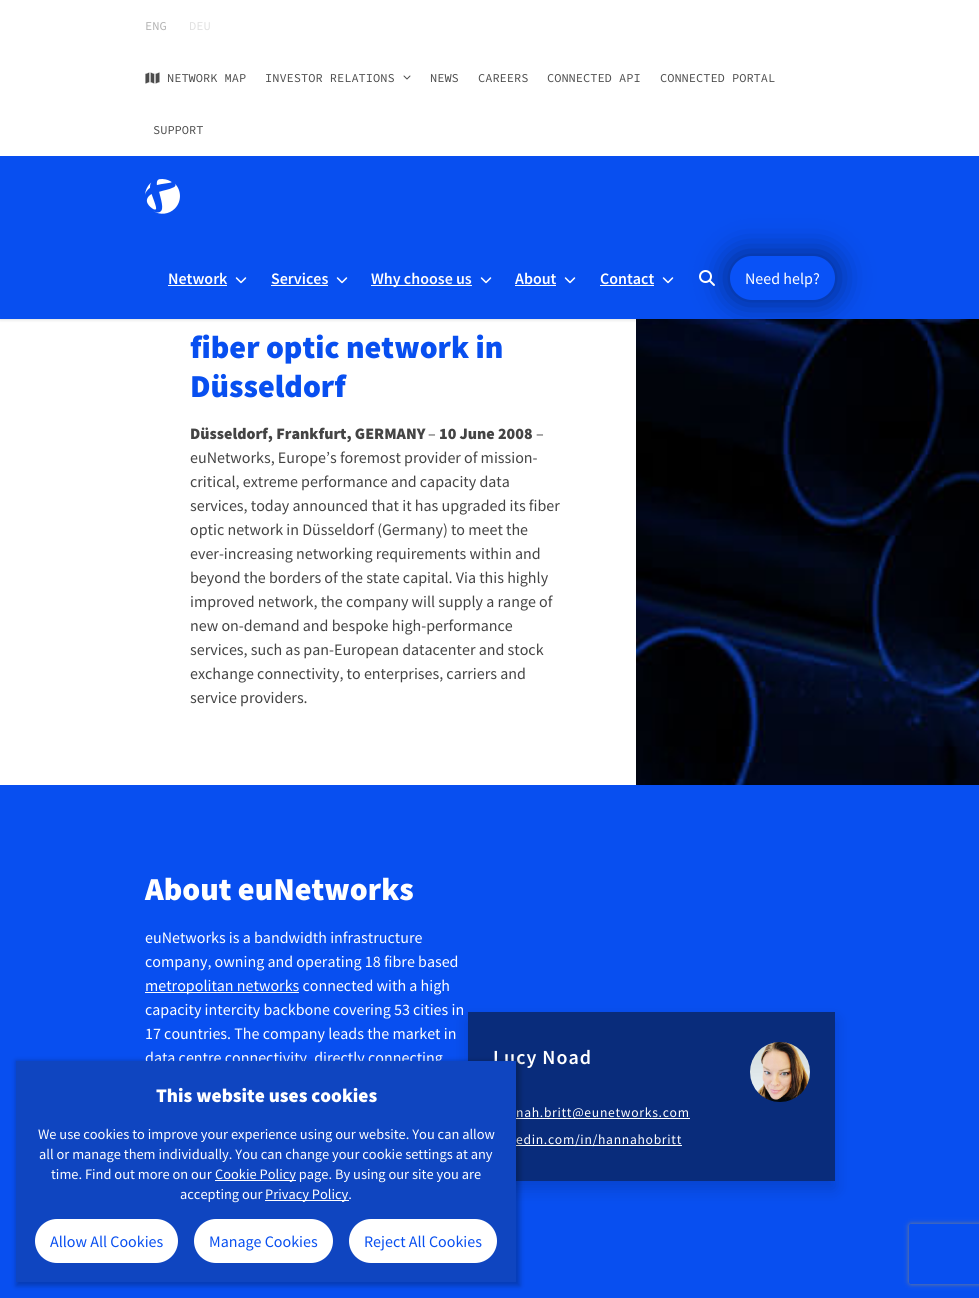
#include <cairo.h>
#include <math.h>
#include <stddef.h>


static void set_color(cairo_t *cr, unsigned color) {
    cairo_set_source_rgb(cr, (color >> 16) / 255.0, (color >> 8 & 255) / 255.0, (color & 255) / 255.0);
}

static void draw_text(cairo_t *cr, double x, double y, const char *s, const char *family, double size, int italic, int bold, unsigned color) {
    cairo_select_font_face(cr, family, italic ? CAIRO_FONT_SLANT_ITALIC : CAIRO_FONT_SLANT_NORMAL,
        bold ? CAIRO_FONT_WEIGHT_BOLD : CAIRO_FONT_WEIGHT_NORMAL);
    cairo_set_font_size(cr, size);
    set_color(cr, color);
    cairo_move_to(cr, x, y);
    cairo_show_text(cr, s);
}

static void draw_spaced(cairo_t *cr, double x, double y, const char *s, double letter, double word) {
    cairo_move_to(cr, x, y);
    while (*s) {
        char ch[5] = {0};
        int n = 0;
        do ch[n++] = *s++; while ((*s & 0xC0) == 0x80);
        cairo_show_text(cr, ch);
        cairo_rel_move_to(cr, letter + word * (*ch == ' '), 0);
    }
}

static void fill_rect(cairo_t *cr, double x, double y, double w, double h, unsigned color) {
    set_color(cr, color);
    cairo_rectangle(cr, x, y, w, h);
    cairo_fill(cr);
}

static void rounded_rect(cairo_t *cr, double x, double y, double w, double h, double r) {
    cairo_new_sub_path(cr);
    cairo_arc(cr, x + w - r, y + h - r, r, 0, M_PI / 2);
    cairo_arc(cr, x + r, y + h - r, r, M_PI / 2, M_PI);
    cairo_arc(cr, x + r, y + r, r, M_PI, 1.5 * M_PI);
    cairo_arc(cr, x + w - r, y + r, r, 1.5 * M_PI, 2 * M_PI);
    cairo_close_path(cr);
}

static void draw_shadow(cairo_t *cr, double x, double y, double w, double h, double r, double blur, double alpha) {
    cairo_push_group_with_content(cr, CAIRO_CONTENT_ALPHA);
    cairo_set_operator(cr, CAIRO_OPERATOR_SOURCE);
    for (int i = 15; i >= -15 && fmin(w, h) + blur * i / 3 > 0; i -= 2) {
        double e = blur * i / 6;
        cairo_set_source_rgba(cr, 0, 0, 0, alpha * erfc((i - 1) / 8.5) / 2);
        rounded_rect(cr, x - e, y - e, w + 2 * e, h + 2 * e, fmax(0, fmin(r + e + blur * .6, fmin(w, h) / 2 + e)));
        cairo_fill(cr);
    }
    cairo_pattern_t *soft = cairo_pop_group(cr);
    cairo_mask(cr, soft);
    cairo_pattern_destroy(soft);
}

static void draw_image(cairo_t *cr, const char *path, double x, double y, double w, double h) {
    cairo_surface_t *image = cairo_image_surface_create_from_png(path);
    cairo_save(cr);
    cairo_set_source_surface(cr, image, x, y);
    cairo_rectangle(cr, x, y, w, h);
    cairo_fill(cr);
    cairo_restore(cr);
    cairo_surface_destroy(image);
}

int main(void) {
    cairo_surface_t *surface = cairo_image_surface_create(CAIRO_FORMAT_RGB24, 979, 1298);
    cairo_t *cr = cairo_create(surface);
    cairo_font_options_t *options = cairo_font_options_create();
    cairo_font_options_set_hint_metrics(options, CAIRO_HINT_METRICS_OFF);
    cairo_font_options_set_hint_style(options, CAIRO_HINT_STYLE_NONE);
    cairo_set_font_options(cr, options);
    cairo_set_miter_limit(cr, 4);
    set_color(cr, 0xFFFFFF);
    cairo_paint(cr);
    draw_image(cr, "assets/img6.png", 636, 319, 343, 466);
    set_color(cr, 0x000000);
    draw_shadow(cr, 0, 0, 979, 319, 0, 2, 0.2);
    fill_rect(cr, 0, 0, 979, 156, 0xFFFFFF);
    draw_text(cr, 145, 30, "ENG", "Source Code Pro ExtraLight", 12, 0, 0, 0xB2B2B2);
    draw_text(cr, 189, 30, "DEU", "Source Code Pro ExtraLight", 12, 0, 0, 0xE0E0E0);
    draw_image(cr, "assets/img1.png", 145, 72, 15, 12);
    draw_text(cr, 167, 82, "NETWORK MAP", "Source Code Pro ExtraLight", 12, 0, 0, 0x4C4C4C);
    draw_text(cr, 265, 82, "INVESTOR RELATIONS", "Source Code Pro ExtraLight", 12, 0, 0, 0x4C4C4C);
    draw_image(cr, "assets/img2.png", 403, 75, 8, 5);
    draw_text(cr, 430, 82, "NEWS", "Source Code Pro ExtraLight", 12, 0, 0, 0x4C4C4C);
    draw_text(cr, 478, 82, "CAREERS", "Source Code Pro ExtraLight", 12, 0, 0, 0x4C4C4C);
    draw_text(cr, 547, 82, "CONNECTED API", "Source Code Pro ExtraLight", 12, 0, 0, 0x4C4C4C);
    draw_text(cr, 660, 82, "CONNECTED PORTAL", "Source Code Pro ExtraLight", 12, 0, 0, 0x4C4C4C);
    draw_text(cr, 153, 134, "SUPPORT", "Source Code Pro ExtraLight", 12, 0, 0, 0x4C4C4C);
    fill_rect(cr, 0, 156, 979, 163, 0x084FF0);
    draw_image(cr, "assets/img3.png", 145, 179, 35, 35);
    draw_text(cr, 168, 284, "Network", "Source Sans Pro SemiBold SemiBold", 16, 0, 0, 0xFFFFFF);
    fill_rect(cr, 168, 285, 59, 1, 0xFFFFFF);
    draw_image(cr, "assets/img4.png", 235, 277, 12, 7);
    draw_text(cr, 271, 284, "Services", "Source Sans Pro SemiBold SemiBold", 16, 0, 0, 0xFFFFFF);
    fill_rect(cr, 271, 285, 57, 1, 0xFFFFFF);
    draw_image(cr, "assets/img4.png", 336, 277, 12, 7);
    fill_rect(cr, 371, 285, 101, 1, 0xFFFFFF);
    draw_text(cr, 371, 284, "Why choose us", "Source Sans Pro SemiBold SemiBold", 16, 0, 0, 0xFFFFFF);
    draw_image(cr, "assets/img4.png", 480, 277, 12, 7);
    draw_text(cr, 515, 284, "About", "Source Sans Pro SemiBold SemiBold", 16, 0, 0, 0xFFFFFF);
    fill_rect(cr, 515, 285, 41, 1, 0xFFFFFF);
    draw_image(cr, "assets/img4.png", 564, 277, 12, 7);
    draw_text(cr, 600, 284, "Contact", "Source Sans Pro SemiBold SemiBold", 16, 0, 0, 0xFFFFFF);
    fill_rect(cr, 600, 285, 54, 1, 0xFFFFFF);
    draw_image(cr, "assets/img4.png", 662, 277, 12, 7);
    set_color(cr, 0x000000);
    draw_shadow(cr, 725, 251, 115, 54, 27, 15, 0.4);
    draw_image(cr, "assets/img5.png", 699, 270, 16, 16);
    set_color(cr, 0x0952F7);
    rounded_rect(cr, 730, 256, 105, 44, 22);
    cairo_fill(cr);
    draw_text(cr, 745, 284, "Need help?", "Source Sans Pro", 16, 0, 0, 0xFFFFFF);
    draw_text(cr, 190, 358, "fiber optic network in", "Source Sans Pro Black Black", 32, 0, 0, 0x084FF0);
    draw_text(cr, 190, 397, "Düsseldorf", "Source Sans Pro Black Black", 32, 0, 0, 0x084FF0);
    draw_text(cr, 190, 439, "Düsseldorf, Frankfurt, GERMANY", "Source Sans Pro Black Black", 16, 0, 0, 0x444444);
    draw_text(cr, 428, 439, "–", "Source Sans Pro", 16, 0, 0, 0x444444);
    draw_text(cr, 439, 439, "10 June 2008", "Source Sans Pro Black Black", 16, 0, 0, 0x444444);
    draw_text(cr, 536, 439, "–", "Source Sans Pro", 16, 0, 0, 0x444444);
    draw_text(cr, 190, 463, "euNetworks, Europe’s foremost provider of mission-", "Source Sans Pro", 16, 0, 0, 0x444444);
    draw_text(cr, 190, 487, "critical, extreme performance and capacity data", "Source Sans Pro", 16, 0, 0, 0x444444);
    draw_text(cr, 190, 511, "services, today announced that it has upgraded its fiber", "Source Sans Pro", 16, 0, 0, 0x444444);
    draw_text(cr, 190, 535, "optic network in Düsseldorf (Germany) to meet the", "Source Sans Pro", 16, 0, 0, 0x444444);
    draw_text(cr, 190, 559, "ever-increasing networking requirements within and", "Source Sans Pro", 16, 0, 0, 0x444444);
    draw_text(cr, 190, 583, "beyond the borders of the state capital. Via this highly", "Source Sans Pro", 16, 0, 0, 0x444444);
    draw_text(cr, 190, 607, "improved network, the company will supply a range of", "Source Sans Pro", 16, 0, 0, 0x444444);
    draw_text(cr, 190, 631, "new on-demand and bespoke high-performance", "Source Sans Pro", 16, 0, 0, 0x444444);
    draw_text(cr, 190, 655, "services, such as pan-European datacenter and stock", "Source Sans Pro", 16, 0, 0, 0x444444);
    draw_text(cr, 190, 679, "exchange connectivity, to enterprises, carriers and", "Source Sans Pro", 16, 0, 0, 0x444444);
    draw_text(cr, 190, 703, "service providers.", "Source Sans Pro", 16, 0, 0, 0x444444);
    fill_rect(cr, 0, 785, 979, 513, 0x084FF0);
    draw_text(cr, 145, 900, "About euNetworks", "Source Sans Pro Black Black", 32, 0, 0, 0xFFFFFF);
    draw_text(cr, 145, 943, "euNetworks is a bandwidth infrastructure", "Source Sans Pro", 16, 0, 0, 0xFFFFFF);
    draw_text(cr, 145, 967, "company, owning and operating 18 fibre based", "Source Sans Pro", 16, 0, 0, 0xFFFFFF);
    fill_rect(cr, 145, 992, 154, 1, 0xFFFFFF);
    draw_text(cr, 145, 991, "metropolitan networks connected with a high", "Source Sans Pro", 16, 0, 0, 0xFFFFFF);
    draw_text(cr, 145, 1015, "capacity intercity backbone covering 53 cities in", "Source Sans Pro", 16, 0, 0, 0xFFFFFF);
    draw_text(cr, 145, 1039, "17 countries. The company leads the market in", "Source Sans Pro", 16, 0, 0, 0xFFFFFF);
    draw_text(cr, 145, 1063, "data centre connectivity, directly connecting", "Source Sans Pro", 16, 0, 0, 0xFFFFFF);
    set_color(cr, 0x000000);
    draw_shadow(cr, 468, 1020, 367, 169, 0, 8, 0.15);
    fill_rect(cr, 468, 1012, 367, 169, 0x092C7B);
    cairo_select_font_face(cr, "Source Sans Pro SemiBold SemiBold", CAIRO_FONT_SLANT_NORMAL, CAIRO_FONT_WEIGHT_NORMAL);
    cairo_set_font_size(cr, 20);
    set_color(cr, 0xFFFFFF);
    draw_spaced(cr, 493, 1064, "Lucy Noad", 1, 0);
    fill_rect(cr, 516, 1118, 174, 1, 0xFFFFFF);
    cairo_select_font_face(cr, "Source Sans Pro", CAIRO_FONT_SLANT_NORMAL, CAIRO_FONT_WEIGHT_NORMAL);
    cairo_set_font_size(cr, 13.6);
    draw_spaced(cr, 516, 1117, "nah.britt@eunetworks.com", 0.7, 0);
    fill_rect(cr, 516, 1145, 166, 1, 0xFFFFFF);
    draw_spaced(cr, 516, 1144, "edin.com/in/hannahobritt", 0.7, 0);
    draw_image(cr, "assets/img7.png", 750, 1042, 60, 60);
    set_color(cr, 0x000000);
    draw_shadow(cr, 16, 1061, 504, 225, 0, 2.5, 0.25);
    fill_rect(cr, 16, 1061, 500, 221, 0x0F45C0);
    draw_text(cr, 156, 1102, "This website uses cookies", "Source Sans Pro Black Black", 19.25, 0, 0, 0xFFFFFF);
    draw_text(cr, 38, 1139, "We use cookies to improve your experience using our website. You can allow", "Source Sans Pro", 14.4, 0, 0, 0xFFFFFF);
    draw_text(cr, 39, 1159, "all or manage them individually. You can change your cookie settings at any", "Source Sans Pro", 14.4, 0, 0, 0xFFFFFF);
    draw_text(cr, 51, 1179, "time. Find out more on our", "Source Sans Pro", 14.4, 0, 0, 0xFFFFFF);
    fill_rect(cr, 215, 1180, 81, 1, 0xFFFFFF);
    draw_text(cr, 215, 1179, "Cookie Policy page. By using our site you are", "Source Sans Pro", 14.4, 0, 0, 0xFFFFFF);
    draw_text(cr, 180, 1199, "accepting our", "Source Sans Pro", 14.4, 0, 0, 0xFFFFFF);
    fill_rect(cr, 265, 1200, 84, 1, 0xFFFFFF);
    draw_text(cr, 265, 1199, "Privacy Policy.", "Source Sans Pro", 14.4, 0, 0, 0xFFFFFF);
    rounded_rect(cr, 35, 1219, 143, 44, 22);
    cairo_fill(cr);
    draw_text(cr, 50, 1247, "Allow All Cookies", "Source Sans Pro", 16, 0, 0, 0x084FF0);
    set_color(cr, 0xFFFFFF);
    rounded_rect(cr, 194, 1219, 139, 44, 22);
    cairo_fill(cr);
    draw_text(cr, 209, 1247, "Manage Cookies", "Source Sans Pro", 16, 0, 0, 0x084FF0);
    set_color(cr, 0xFFFFFF);
    rounded_rect(cr, 349, 1219, 148, 44, 22);
    cairo_fill(cr);
    draw_text(cr, 364, 1247, "Reject All Cookies", "Source Sans Pro", 16, 0, 0, 0x084FF0);
    cairo_save(cr);
    cairo_set_fill_rule(cr, CAIRO_FILL_RULE_EVEN_ODD);
    cairo_new_path(cr);
    cairo_move_to(cr, 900, 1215);
    cairo_line_to(cr, 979, 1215);
    cairo_line_to(cr, 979, 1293);
    cairo_line_to(cr, 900, 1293);
    cairo_close_path(cr);
    cairo_move_to(cr, 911, 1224);
    cairo_line_to(cr, 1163, 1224);
    cairo_curve_to(cr, 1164, 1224, 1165, 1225, 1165, 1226);
    cairo_line_to(cr, 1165, 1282);
    cairo_curve_to(cr, 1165, 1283, 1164, 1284, 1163, 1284);
    cairo_line_to(cr, 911, 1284);
    cairo_curve_to(cr, 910, 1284, 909, 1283, 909, 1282);
    cairo_line_to(cr, 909, 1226);
    cairo_curve_to(cr, 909, 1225, 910, 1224, 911, 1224);
    cairo_close_path(cr);
    cairo_clip(cr);
    set_color(cr, 0x808080);
    draw_shadow(cr, 909, 1224, 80, 60, 2, 2.5, 1);
    cairo_restore(cr);
    cairo_surface_write_to_png(surface, "output.png");
    cairo_font_options_destroy(options);
    cairo_destroy(cr);
    cairo_surface_destroy(surface);
    return 0;
}
